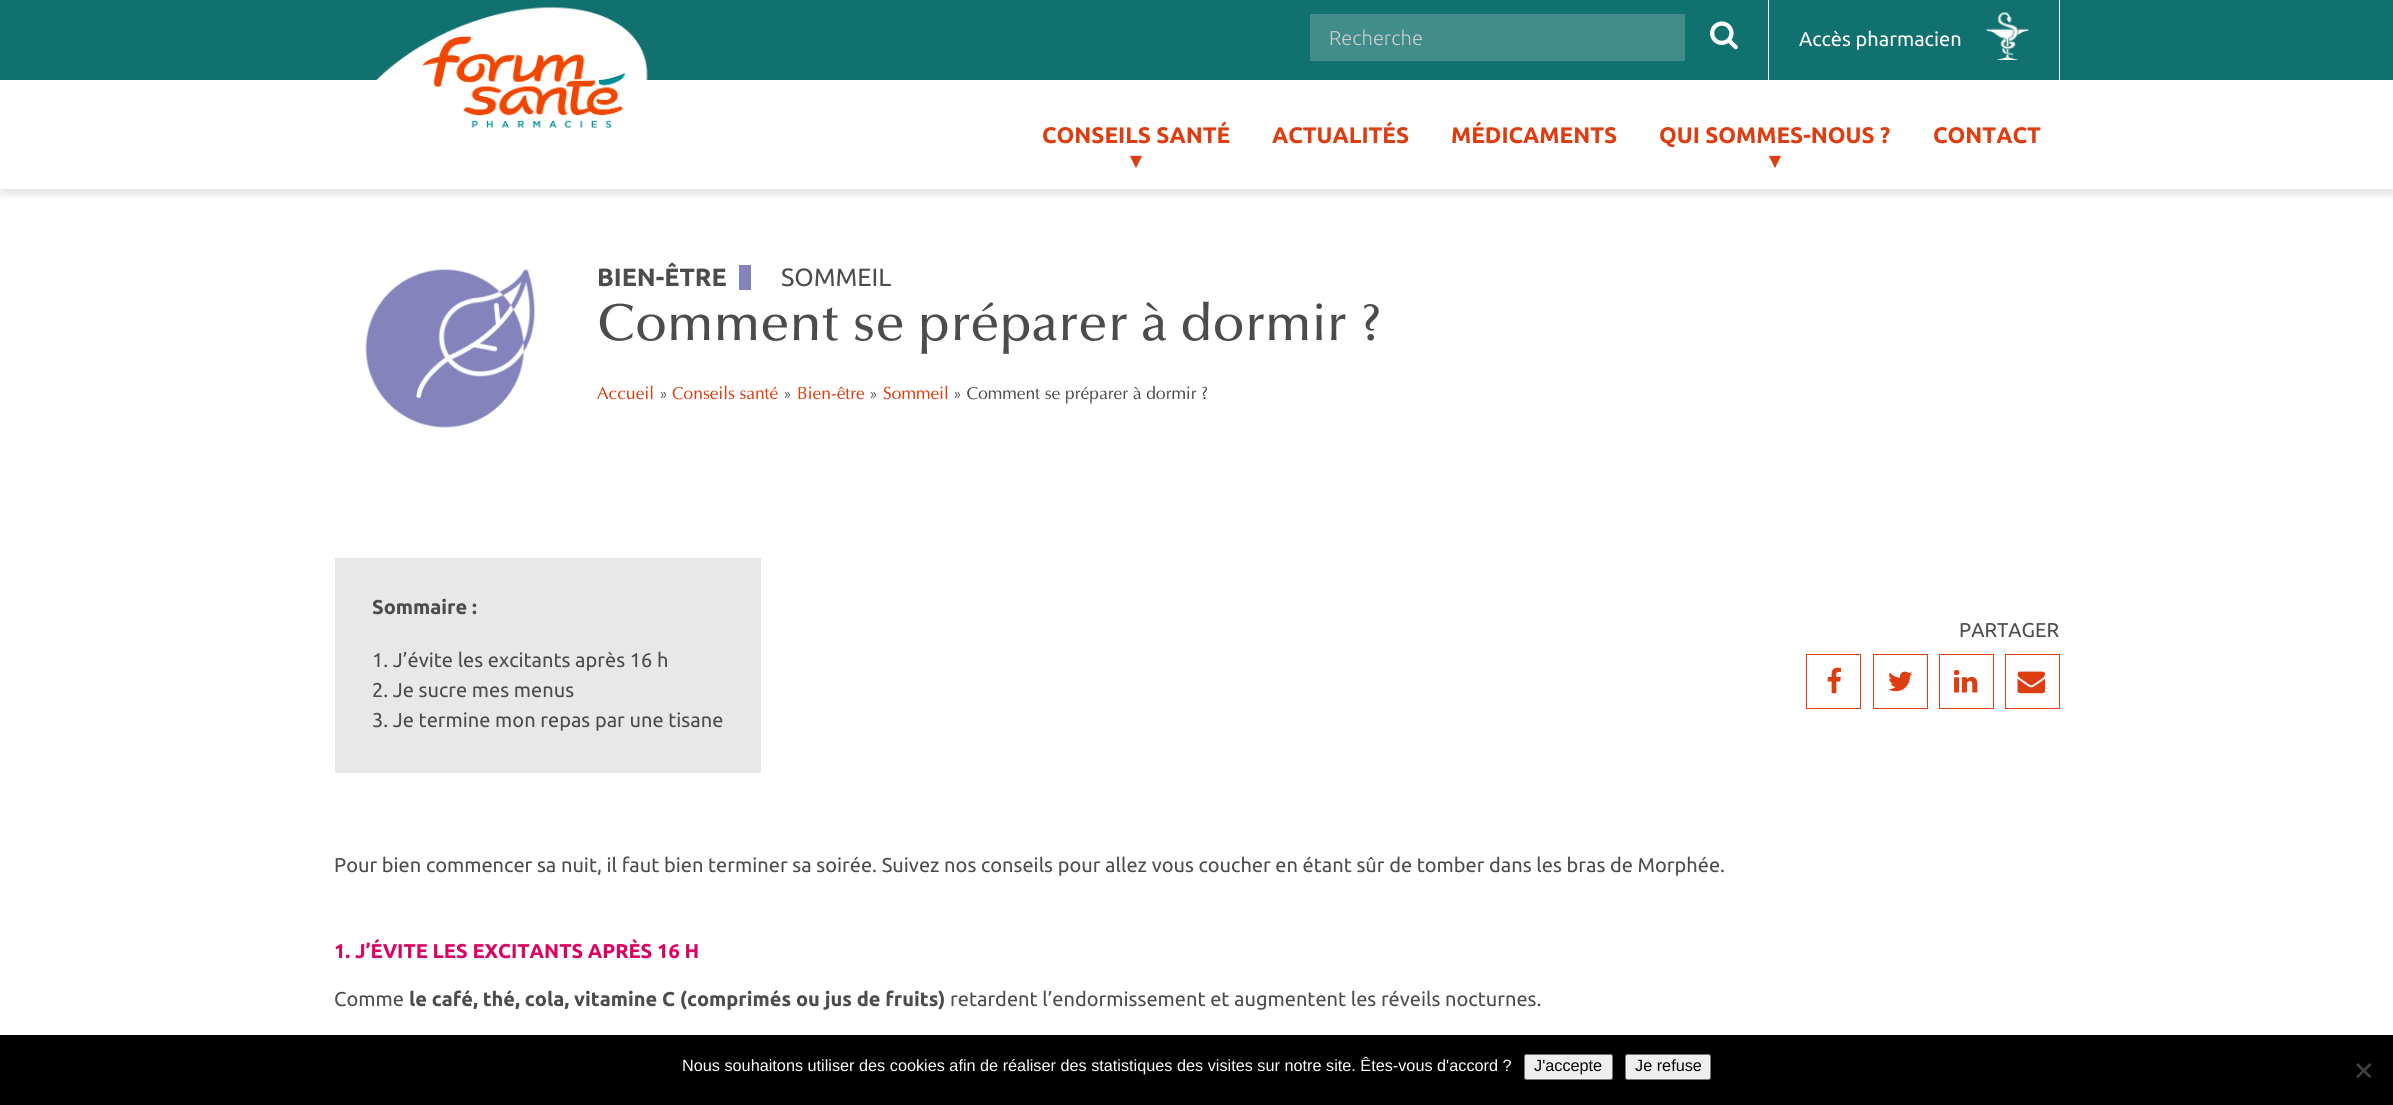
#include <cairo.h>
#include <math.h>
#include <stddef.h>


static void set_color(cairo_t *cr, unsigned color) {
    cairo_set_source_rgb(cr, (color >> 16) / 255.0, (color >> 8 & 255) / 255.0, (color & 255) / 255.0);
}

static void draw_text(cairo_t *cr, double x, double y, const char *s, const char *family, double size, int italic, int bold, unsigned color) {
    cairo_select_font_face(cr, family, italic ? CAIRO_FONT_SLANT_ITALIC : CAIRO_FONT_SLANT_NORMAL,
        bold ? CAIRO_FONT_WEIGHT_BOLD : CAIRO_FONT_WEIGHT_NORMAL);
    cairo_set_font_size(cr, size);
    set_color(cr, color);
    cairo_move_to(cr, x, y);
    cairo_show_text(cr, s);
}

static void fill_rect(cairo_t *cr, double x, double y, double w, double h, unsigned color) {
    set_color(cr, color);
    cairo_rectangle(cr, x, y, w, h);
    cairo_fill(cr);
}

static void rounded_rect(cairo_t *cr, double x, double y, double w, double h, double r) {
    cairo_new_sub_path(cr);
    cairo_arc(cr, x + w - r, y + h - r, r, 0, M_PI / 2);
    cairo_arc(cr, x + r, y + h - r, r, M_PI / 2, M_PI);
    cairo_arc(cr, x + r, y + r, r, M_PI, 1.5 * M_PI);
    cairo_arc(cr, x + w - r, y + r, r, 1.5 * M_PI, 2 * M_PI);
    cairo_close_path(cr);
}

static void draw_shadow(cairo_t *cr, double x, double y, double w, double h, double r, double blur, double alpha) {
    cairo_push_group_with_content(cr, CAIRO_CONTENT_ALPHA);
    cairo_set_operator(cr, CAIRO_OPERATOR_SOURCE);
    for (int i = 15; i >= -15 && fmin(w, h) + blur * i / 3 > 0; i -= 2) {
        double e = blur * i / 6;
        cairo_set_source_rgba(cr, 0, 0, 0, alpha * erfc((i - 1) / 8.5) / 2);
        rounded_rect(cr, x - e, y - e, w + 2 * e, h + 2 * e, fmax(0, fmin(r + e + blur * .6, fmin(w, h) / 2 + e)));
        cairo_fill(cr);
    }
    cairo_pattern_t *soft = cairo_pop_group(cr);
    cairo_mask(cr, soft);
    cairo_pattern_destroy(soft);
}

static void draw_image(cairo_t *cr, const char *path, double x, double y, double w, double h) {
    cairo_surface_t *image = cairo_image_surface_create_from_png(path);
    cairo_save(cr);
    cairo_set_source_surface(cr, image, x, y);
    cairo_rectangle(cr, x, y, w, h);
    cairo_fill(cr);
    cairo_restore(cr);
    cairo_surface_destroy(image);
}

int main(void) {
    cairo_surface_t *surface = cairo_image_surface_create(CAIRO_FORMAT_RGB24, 2393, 1105);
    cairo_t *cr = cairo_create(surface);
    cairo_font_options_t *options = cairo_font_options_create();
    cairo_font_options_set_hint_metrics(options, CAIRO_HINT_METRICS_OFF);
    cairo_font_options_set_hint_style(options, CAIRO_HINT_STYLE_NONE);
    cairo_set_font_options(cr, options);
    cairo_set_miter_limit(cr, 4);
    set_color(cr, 0xFFFFFF);
    cairo_paint(cr);
    set_color(cr, 0x000000);
    draw_shadow(cr, 0, 6, 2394, 189, 0, 3, 0.1);
    fill_rect(cr, 0, 0, 2393, 80, 0x11716F);
    fill_rect(cr, 1768, 0, 1, 80, 0xFFFFFF);
    fill_rect(cr, 1310, 14, 375, 47, 0x418D8C);
    draw_text(cr, 1329, 45, "Recherche", "Ubuntu Light", 20, 0, 0, 0xCCCCCC);
    draw_image(cr, "assets/img1.png", 1710, 21, 28, 29);
    fill_rect(cr, 2059, 0, 1, 80, 0xFFFFFF);
    draw_text(cr, 1799, 46, "Accès pharmacien", "Ubuntu", 20, 0, 0, 0xFFFFFF);
    draw_image(cr, "assets/img2.png", 1986, 12, 43, 48);
    fill_rect(cr, 0, 80, 2393, 109, 0xFFFFFF);
    draw_image(cr, "assets/img3.png", 376, 7, 272, 122);
    draw_text(cr, 1042, 143, "CONSEILS SANTÉ", "Ubuntu", 22.5, 0, 1, 0xDD3D11);
    draw_text(cr, 1130, 168, "▾", "DejaVu Sans", 22.5, 0, 1, 0xDD3D11);
    draw_text(cr, 1272, 143, "ACTUALITÉS", "Ubuntu", 22.5, 0, 1, 0xDD3D11);
    draw_text(cr, 1451, 143, "MÉDICAMENTS", "Ubuntu", 22.5, 0, 1, 0xDD3D11);
    draw_text(cr, 1659, 143, "QUI SOMMES-NOUS ?", "Ubuntu", 22.5, 0, 1, 0xDD3D11);
    draw_text(cr, 1769, 168, "▾", "DejaVu Sans", 22.5, 0, 1, 0xDD3D11);
    draw_text(cr, 1933, 143, "CONTACT", "Ubuntu", 22.5, 0, 1, 0xDD3D11);
    draw_image(cr, "assets/img4.png", 365, 269, 170, 159);
    fill_rect(cr, 739, 265, 12, 25, 0x8483BC);
    draw_text(cr, 597, 286, "BIEN-ÊTRE", "Ubuntu", 25, 0, 1, 0x4C4C4C);
    draw_text(cr, 781, 286, "SOMMEIL", "Ubuntu", 25, 0, 0, 0x4C4C4C);
    draw_text(cr, 597, 340, "Comment se préparer à dormir ?", "Optima Medium", 52.5, 0, 0, 0x4C4C4C);
    draw_text(cr, 597, 399, "Accueil", "Optima", 17.5, 0, 0, 0xDD3D11);
    draw_text(cr, 659, 399, "»", "Optima", 17.5, 0, 0, 0x4C4C4C);
    draw_text(cr, 672, 399, "Conseils santé", "Optima", 17.5, 0, 0, 0xDD3D11);
    draw_text(cr, 783, 399, "»", "Optima", 17.5, 0, 0, 0x4C4C4C);
    draw_text(cr, 797, 399, "Bien-être", "Optima", 17.5, 0, 0, 0xDD3D11);
    draw_text(cr, 869, 399, "»", "Optima", 17.5, 0, 0, 0x4C4C4C);
    draw_text(cr, 883, 399, "Sommeil", "Optima", 17.5, 0, 0, 0xDD3D11);
    draw_text(cr, 953, 399, "» Comment se préparer à dormir ?", "Optima", 17.5, 0, 0, 0x4C4C4C);
    fill_rect(cr, 335, 558, 426, 215, 0xE8E8E8);
    draw_text(cr, 372, 614, "Sommaire :", "Ubuntu", 20, 0, 1, 0x4C4C4C);
    draw_text(cr, 372, 667, "1. J’évite les excitants après 16 h", "Ubuntu", 20, 0, 0, 0x4C4C4C);
    draw_text(cr, 372, 697, "2. Je sucre mes menus", "Ubuntu", 20, 0, 0, 0x4C4C4C);
    draw_text(cr, 372, 727, "3. Je termine mon repas par une tisane", "Ubuntu", 20, 0, 0, 0x4C4C4C);
    draw_text(cr, 1959, 637, "PARTAGER", "Ubuntu", 20, 0, 0, 0x4C4C4C);
    cairo_rectangle(cr, 1806.5, 654.5, 54, 54);
    set_color(cr, 0xDD3D11);
    cairo_set_line_width(cr, 1);
    cairo_stroke(cr);
    draw_image(cr, "assets/img5.png", 1827, 667, 14, 27);
    cairo_rectangle(cr, 1873.5, 654.5, 54, 54);
    cairo_stroke(cr);
    draw_image(cr, "assets/img6.png", 1888, 671, 25, 21);
    cairo_rectangle(cr, 1939.5, 654.5, 54, 54);
    cairo_stroke(cr);
    draw_image(cr, "assets/img7.png", 1953, 670, 25, 23);
    cairo_rectangle(cr, 2005.5, 654.5, 54, 54);
    cairo_stroke(cr);
    draw_image(cr, "assets/img8.png", 2017, 671, 28, 23);
    draw_text(cr, 334, 872, "Pour bien commencer sa nuit, il faut bien terminer sa soirée. Suivez nos conseils pour allez vous coucher en étant sûr de tomber dans les bras de Morphée.", "Ubuntu", 20, 0, 0, 0x4C4C4C);
    draw_text(cr, 334, 958, "1. J’ÉVITE LES EXCITANTS APRÈS 16 H", "Ubuntu", 20, 0, 1, 0xDC0262);
    draw_text(cr, 334, 1006, "Comme", "Ubuntu", 20, 0, 0, 0x4C4C4C);
    draw_text(cr, 409, 1006, "le café, thé, cola, vitamine C (comprimés ou jus de fruits)", "Ubuntu", 20, 0, 1, 0x4C4C4C);
    draw_text(cr, 950, 1006, "retardent l’endormissement et augmentent les réveils nocturnes.", "Ubuntu", 20, 0, 0, 0x4C4C4C);
    fill_rect(cr, 0, 1035, 2393, 70, 0x000000);
    draw_text(cr, 682, 1071, "Nous souhaitons utiliser des cookies afin de réaliser des statistiques des visites sur notre site. Êtes-vous d'accord ?", "Liberation Sans", 16.25, 0, 0, 0xFFFFFF);
    set_color(cr, 0xEFEFEF);
    rounded_rect(cr, 1524.5, 1054.5, 88, 25, 2);
    cairo_fill_preserve(cr);
    set_color(cr, 0x767676);
    cairo_stroke(cr);
    draw_text(cr, 1534, 1071, "J'accepte", "Liberation Sans", 16.25, 0, 0, 0x000000);
    set_color(cr, 0xEFEFEF);
    rounded_rect(cr, 1625.5, 1054.5, 85, 25, 2);
    cairo_fill_preserve(cr);
    set_color(cr, 0x767676);
    cairo_stroke(cr);
    draw_text(cr, 1635, 1071, "Je refuse", "Liberation Sans", 16.25, 0, 0, 0x000000);
    set_color(cr, 0x404040);
    cairo_new_path(cr);
    cairo_move_to(cr, 2369.5, 1063);
    cairo_line_to(cr, 2371.5, 1065);
    cairo_line_to(cr, 2358, 1078);
    cairo_line_to(cr, 2356, 1076.5);
    cairo_close_path(cr);
    cairo_fill(cr);
    cairo_new_path(cr);
    cairo_move_to(cr, 2356, 1065);
    cairo_line_to(cr, 2358, 1063);
    cairo_line_to(cr, 2371.5, 1076.5);
    cairo_line_to(cr, 2369.5, 1078);
    cairo_close_path(cr);
    cairo_fill(cr);
    cairo_surface_write_to_png(surface, "output.png");
    cairo_font_options_destroy(options);
    cairo_destroy(cr);
    cairo_surface_destroy(surface);
    return 0;
}
